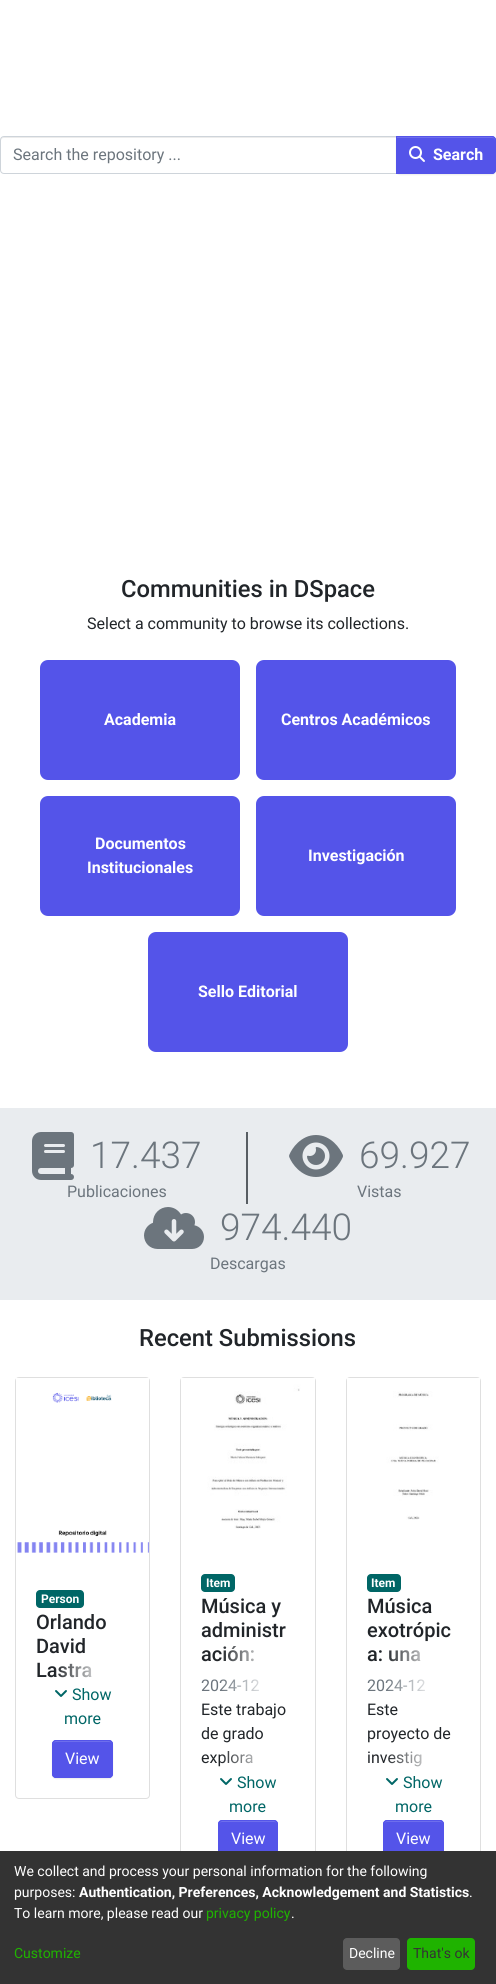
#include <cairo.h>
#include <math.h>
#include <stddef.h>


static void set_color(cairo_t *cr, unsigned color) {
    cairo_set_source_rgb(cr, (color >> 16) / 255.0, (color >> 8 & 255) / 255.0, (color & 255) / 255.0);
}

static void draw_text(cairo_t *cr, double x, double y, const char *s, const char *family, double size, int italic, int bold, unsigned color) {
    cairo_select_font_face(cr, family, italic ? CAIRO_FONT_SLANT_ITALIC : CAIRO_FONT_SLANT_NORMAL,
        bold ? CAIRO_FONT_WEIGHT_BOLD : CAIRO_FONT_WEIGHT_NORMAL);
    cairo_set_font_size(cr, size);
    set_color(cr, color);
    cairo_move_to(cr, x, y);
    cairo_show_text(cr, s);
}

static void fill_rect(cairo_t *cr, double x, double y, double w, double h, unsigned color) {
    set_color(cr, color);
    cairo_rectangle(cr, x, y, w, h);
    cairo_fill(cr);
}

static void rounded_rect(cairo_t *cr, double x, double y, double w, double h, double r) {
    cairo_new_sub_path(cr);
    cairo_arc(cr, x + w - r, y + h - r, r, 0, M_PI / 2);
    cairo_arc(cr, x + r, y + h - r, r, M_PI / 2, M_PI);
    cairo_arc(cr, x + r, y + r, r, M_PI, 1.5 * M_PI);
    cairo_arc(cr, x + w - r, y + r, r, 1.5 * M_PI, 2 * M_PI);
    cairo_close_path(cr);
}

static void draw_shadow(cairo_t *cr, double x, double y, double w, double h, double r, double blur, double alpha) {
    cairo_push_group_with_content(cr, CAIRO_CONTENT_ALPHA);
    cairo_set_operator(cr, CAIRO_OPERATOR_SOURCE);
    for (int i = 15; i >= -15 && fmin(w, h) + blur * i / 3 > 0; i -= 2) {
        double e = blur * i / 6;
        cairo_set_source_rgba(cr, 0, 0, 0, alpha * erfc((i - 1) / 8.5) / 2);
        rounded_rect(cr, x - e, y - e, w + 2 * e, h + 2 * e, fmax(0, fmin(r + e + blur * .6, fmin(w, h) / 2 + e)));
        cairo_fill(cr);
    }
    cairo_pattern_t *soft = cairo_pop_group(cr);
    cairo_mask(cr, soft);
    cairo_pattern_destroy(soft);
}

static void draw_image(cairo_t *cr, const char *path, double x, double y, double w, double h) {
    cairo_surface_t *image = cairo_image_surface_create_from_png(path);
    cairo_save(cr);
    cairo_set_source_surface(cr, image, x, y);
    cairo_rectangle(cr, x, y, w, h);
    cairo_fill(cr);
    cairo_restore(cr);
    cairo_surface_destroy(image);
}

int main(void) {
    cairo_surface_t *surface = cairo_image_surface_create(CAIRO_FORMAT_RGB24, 496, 1984);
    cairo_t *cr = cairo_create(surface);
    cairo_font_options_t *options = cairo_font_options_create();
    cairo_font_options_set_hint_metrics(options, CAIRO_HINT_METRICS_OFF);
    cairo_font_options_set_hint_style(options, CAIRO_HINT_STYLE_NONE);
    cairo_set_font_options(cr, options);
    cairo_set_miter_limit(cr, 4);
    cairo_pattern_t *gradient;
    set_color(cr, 0xFFFFFF);
    cairo_paint(cr);
    set_color(cr, 0xECECEC);
    cairo_new_path(cr);
    cairo_move_to(cr, 4, 138);
    cairo_line_to(cr, 396, 138);
    cairo_line_to(cr, 396, 137);
    cairo_line_to(cr, 4, 137);
    cairo_curve_to(cr, 2, 137, 1, 138, 1, 140);
    cairo_line_to(cr, 1, 141);
    cairo_curve_to(cr, 1, 139, 2, 138, 4, 138);
    cairo_close_path(cr);
    cairo_fill(cr);
    cairo_new_path(cr);
    cairo_move_to(cr, 4, 136.5);
    cairo_line_to(cr, 396.5, 136.5);
    cairo_line_to(cr, 396.5, 173.5);
    cairo_line_to(cr, 4, 173.5);
    cairo_curve_to(cr, 2, 173.5, 0.5, 172, 0.5, 170);
    cairo_line_to(cr, 0.5, 140);
    cairo_curve_to(cr, 0.5, 138, 2, 136.5, 4, 136.5);
    cairo_close_path(cr);
    set_color(cr, 0xCED4DA);
    cairo_set_line_width(cr, 1);
    cairo_stroke(cr);
    draw_text(cr, 13, 160, "Search the repository ...", "Roboto", 16, 0, 0, 0x6C757D);
    set_color(cr, 0x000000);
    draw_shadow(cr, 396, 137, 100, 38, 4, 0.5, 0.07);
    set_color(cr, 0x5454E9);
    cairo_new_path(cr);
    cairo_move_to(cr, 396, 136);
    cairo_line_to(cr, 492, 136);
    cairo_curve_to(cr, 494, 136, 496, 138, 496, 140);
    cairo_line_to(cr, 496, 170);
    cairo_curve_to(cr, 496, 172, 494, 174, 492, 174);
    cairo_line_to(cr, 396, 174);
    cairo_close_path(cr);
    cairo_fill(cr);
    set_color(cr, 0x6E6EEC);
    cairo_new_path(cr);
    cairo_move_to(cr, 397, 138);
    cairo_line_to(cr, 492, 138);
    cairo_curve_to(cr, 494, 138, 495, 139, 495, 141);
    cairo_line_to(cr, 495, 140);
    cairo_curve_to(cr, 495, 138, 494, 137, 492, 137);
    cairo_line_to(cr, 397, 137);
    cairo_close_path(cr);
    cairo_fill(cr);
    cairo_new_path(cr);
    cairo_move_to(cr, 396.5, 136.5);
    cairo_line_to(cr, 492, 136.5);
    cairo_curve_to(cr, 494, 136.5, 495.5, 138, 495.5, 140);
    cairo_line_to(cr, 495.5, 170);
    cairo_curve_to(cr, 495.5, 172, 494, 173.5, 492, 173.5);
    cairo_line_to(cr, 396.5, 173.5);
    cairo_close_path(cr);
    set_color(cr, 0x5454E9);
    cairo_stroke(cr);
    draw_image(cr, "assets/img1.png", 409, 146, 16, 16);
    draw_text(cr, 433, 160, "Search", "Roboto", 16, 0, 1, 0xFFFFFF);
    draw_text(cr, 121, 597, "Communities in DSpace", "Roboto Medium", 23.75, 0, 0, 0x212529);
    draw_text(cr, 87, 629, "Select a community to browse its collections.", "Roboto", 16, 0, 0, 0x212529);
    set_color(cr, 0x5454E9);
    rounded_rect(cr, 40, 660, 200, 120, 8);
    cairo_fill(cr);
    draw_text(cr, 104, 725, "Academia", "Roboto", 16, 0, 1, 0xFFFFFF);
    set_color(cr, 0x5454E9);
    rounded_rect(cr, 256, 660, 200, 120, 8);
    cairo_fill(cr);
    draw_text(cr, 281, 725, "Centros Académicos", "Roboto", 16, 0, 1, 0xFFFFFF);
    set_color(cr, 0x5454E9);
    rounded_rect(cr, 40, 796, 200, 120, 8);
    cairo_fill(cr);
    draw_text(cr, 95, 849, "Documentos", "Roboto", 16, 0, 1, 0xFFFFFF);
    draw_text(cr, 87, 873, "Institucionales", "Roboto", 16, 0, 1, 0xFFFFFF);
    set_color(cr, 0x5454E9);
    rounded_rect(cr, 256, 796, 200, 120, 8);
    cairo_fill(cr);
    draw_text(cr, 308, 861, "Investigación", "Roboto", 16, 0, 1, 0xFFFFFF);
    set_color(cr, 0x5454E9);
    rounded_rect(cr, 148, 932, 200, 120, 8);
    cairo_fill(cr);
    draw_text(cr, 198, 997, "Sello Editorial", "Roboto", 16, 0, 1, 0xFFFFFF);
    fill_rect(cr, 0, 1108, 496, 192, 0xE9ECEF);
    draw_image(cr, "assets/img2.png", 32, 1132, 42, 48);
    draw_text(cr, 90, 1168, "17.437", "Roboto Light", 37, 0, 0, 0x6C757D);
    fill_rect(cr, 246, 1132, 2, 72, 0x585E63);
    draw_text(cr, 67, 1197, "Publicaciones", "Roboto", 16, 0, 0, 0x6C757D);
    draw_image(cr, "assets/img3.png", 289, 1135, 54, 42);
    draw_text(cr, 359, 1168, "69.927", "Roboto Light", 37, 0, 0, 0x6C757D);
    draw_text(cr, 357, 1197, "Vistas", "Roboto", 16, 0, 0, 0x6C757D);
    draw_image(cr, "assets/img4.png", 144, 1207, 60, 42);
    draw_text(cr, 220, 1240, "974.440", "Roboto Light", 37, 0, 0, 0x6C757D);
    draw_text(cr, 210, 1269, "Descargas", "Roboto", 16, 0, 0, 0x6C757D);
    draw_text(cr, 139, 1346, "Recent Submissions", "Roboto Medium", 23.75, 0, 0, 0x212529);
    rounded_rect(cr, 15.5, 1377.5, 134, 421, 3.5);
    set_color(cr, 0xDFDFDF);
    cairo_stroke(cr);
    draw_image(cr, "assets/img5.png", 16, 1378, 133, 175);
    set_color(cr, 0x006666);
    rounded_rect(cr, 36, 1590, 48, 18, 4);
    cairo_fill(cr);
    draw_text(cr, 41, 1603, "Person", "Roboto", 12, 0, 1, 0xFFFFFF);
    draw_text(cr, 36, 1629, "Orlando", "Roboto Medium", 20, 0, 0, 0x212529);
    draw_text(cr, 36, 1653, "David", "Roboto Medium", 20, 0, 0, 0x212529);
    draw_text(cr, 36, 1677, "Lastra", "Roboto Medium", 20, 0, 0, 0x212529);
    gradient = cairo_pattern_create_linear(54, 1670, 129, 1670);
    cairo_pattern_add_color_stop_rgba(gradient, 0, 1, 1, 1, 0);
    cairo_pattern_add_color_stop_rgba(gradient, 0.7, 1, 1, 1, 1);
    cairo_set_source(cr, gradient);
    cairo_pattern_destroy(gradient);
    cairo_rectangle(cr, 55, 1663, 37, 15);
    cairo_fill(cr);
    draw_image(cr, "assets/img6.png", 55, 1690, 12, 7);
    draw_text(cr, 72, 1700, "Show", "Roboto", 16, 0, 0, 0x006666);
    draw_text(cr, 64, 1724, "more", "Roboto", 16, 0, 0, 0x006666);
    set_color(cr, 0x000000);
    draw_shadow(cr, 52, 1741, 61, 38, 4, 0.5, 0.07);
    set_color(cr, 0x5454E9);
    rounded_rect(cr, 52, 1740, 61, 38, 4);
    cairo_fill(cr);
    set_color(cr, 0x6E6EEC);
    cairo_new_path(cr);
    cairo_move_to(cr, 56, 1742);
    cairo_line_to(cr, 109, 1742);
    cairo_curve_to(cr, 111, 1742, 112, 1743, 112, 1745);
    cairo_curve_to(cr, 112, 1739, 105, 1741, 100, 1741);
    cairo_line_to(cr, 65, 1741);
    cairo_curve_to(cr, 60, 1741, 53, 1739, 53, 1745);
    cairo_curve_to(cr, 53, 1743, 54, 1742, 56, 1742);
    cairo_close_path(cr);
    cairo_fill(cr);
    rounded_rect(cr, 52.5, 1740.5, 60, 37, 3.5);
    set_color(cr, 0x5454E9);
    cairo_stroke(cr);
    draw_text(cr, 65, 1764, "View", "Roboto", 16, 0, 0, 0xFFFFFF);
    rounded_rect(cr, 180.5, 1377.5, 135, 501, 3.5);
    set_color(cr, 0xDFDFDF);
    cairo_stroke(cr);
    draw_image(cr, "assets/img7.png", 181, 1378, 134, 151);
    set_color(cr, 0x006666);
    rounded_rect(cr, 201, 1574, 34, 18, 4);
    cairo_fill(cr);
    draw_text(cr, 206, 1587, "Item", "Roboto", 12, 0, 1, 0xFFFFFF);
    draw_text(cr, 201, 1613, "Música y", "Roboto Medium", 20, 0, 0, 0x212529);
    draw_text(cr, 201, 1637, "administr", "Roboto Medium", 20, 0, 0, 0x212529);
    draw_text(cr, 201, 1661, "ación:", "Roboto Medium", 20, 0, 0, 0x212529);
    gradient = cairo_pattern_create_linear(220, 1654, 295, 1654);
    cairo_pattern_add_color_stop_rgba(gradient, 0, 1, 1, 1, 0);
    cairo_pattern_add_color_stop_rgba(gradient, 0.7, 1, 1, 1, 1);
    cairo_set_source(cr, gradient);
    cairo_pattern_destroy(gradient);
    cairo_rectangle(cr, 221, 1646, 34, 16);
    cairo_fill(cr);
    draw_text(cr, 201, 1691, "2024-12", "Roboto", 16, 0, 0, 0x6C757D);
    gradient = cairo_pattern_create_linear(220, 1686, 295, 1686);
    cairo_pattern_add_color_stop_rgba(gradient, 0, 1, 1, 1, 0);
    cairo_pattern_add_color_stop_rgba(gradient, 0.7, 1, 1, 1, 1);
    cairo_set_source(cr, gradient);
    cairo_pattern_destroy(gradient);
    cairo_rectangle(cr, 221, 1679, 39, 12);
    cairo_fill(cr);
    draw_text(cr, 201, 1715, "Este trabajo", "Roboto", 16, 0, 0, 0x212529);
    draw_text(cr, 201, 1739, "de grado", "Roboto", 16, 0, 0, 0x212529);
    draw_text(cr, 201, 1763, "explora", "Roboto", 16, 0, 0, 0x212529);
    gradient = cairo_pattern_create_linear(220, 1758, 295, 1758);
    cairo_pattern_add_color_stop_rgba(gradient, 0, 1, 1, 1, 0);
    cairo_pattern_add_color_stop_rgba(gradient, 0.7, 1, 1, 1, 1);
    cairo_set_source(cr, gradient);
    cairo_pattern_destroy(gradient);
    cairo_rectangle(cr, 221, 1751, 32, 13);
    cairo_fill(cr);
    draw_image(cr, "assets/img6.png", 220, 1778, 12, 7);
    draw_text(cr, 237, 1788, "Show", "Roboto", 16, 0, 0, 0x006666);
    draw_text(cr, 229, 1812, "more", "Roboto", 16, 0, 0, 0x006666);
    set_color(cr, 0x5454E9);
    rounded_rect(cr, 218, 1820, 60, 38, 4);
    cairo_fill(cr);
    set_color(cr, 0x6E6EEC);
    cairo_new_path(cr);
    cairo_move_to(cr, 222, 1822);
    cairo_line_to(cr, 274, 1822);
    cairo_curve_to(cr, 276, 1822, 277, 1823, 277, 1825);
    cairo_curve_to(cr, 277, 1819, 270, 1821, 265, 1821);
    cairo_line_to(cr, 231, 1821);
    cairo_curve_to(cr, 226, 1821, 219, 1819, 219, 1825);
    cairo_curve_to(cr, 219, 1823, 220, 1822, 222, 1822);
    cairo_close_path(cr);
    cairo_fill(cr);
    rounded_rect(cr, 218.5, 1820.5, 59, 37, 3.5);
    set_color(cr, 0x5454E9);
    cairo_stroke(cr);
    draw_text(cr, 231, 1844, "View", "Roboto", 16, 0, 0, 0xFFFFFF);
    rounded_rect(cr, 346.5, 1377.5, 134, 501, 3.5);
    set_color(cr, 0xDFDFDF);
    cairo_stroke(cr);
    draw_image(cr, "assets/img8.png", 347, 1378, 133, 142);
    set_color(cr, 0x006666);
    rounded_rect(cr, 367, 1574, 34, 18, 4);
    cairo_fill(cr);
    draw_text(cr, 371, 1587, "Item", "Roboto", 12, 0, 1, 0xFFFFFF);
    draw_text(cr, 367, 1613, "Música", "Roboto Medium", 20, 0, 0, 0x212529);
    draw_text(cr, 367, 1637, "exotrópic", "Roboto Medium", 20, 0, 0, 0x212529);
    draw_text(cr, 367, 1661, "a: una", "Roboto Medium", 20, 0, 0, 0x212529);
    gradient = cairo_pattern_create_linear(385, 1654, 460, 1654);
    cairo_pattern_add_color_stop_rgba(gradient, 0, 1, 1, 1, 0);
    cairo_pattern_add_color_stop_rgba(gradient, 0.7, 1, 1, 1, 1);
    cairo_set_source(cr, gradient);
    cairo_pattern_destroy(gradient);
    cairo_rectangle(cr, 389, 1650, 31, 12);
    cairo_fill(cr);
    draw_text(cr, 367, 1691, "2024-12", "Roboto", 16, 0, 0, 0x6C757D);
    gradient = cairo_pattern_create_linear(385, 1686, 460, 1686);
    cairo_pattern_add_color_stop_rgba(gradient, 0, 1, 1, 1, 0);
    cairo_pattern_add_color_stop_rgba(gradient, 0.7, 1, 1, 1, 1);
    cairo_set_source(cr, gradient);
    cairo_pattern_destroy(gradient);
    cairo_rectangle(cr, 386, 1679, 39, 12);
    cairo_fill(cr);
    draw_text(cr, 367, 1715, "Este", "Roboto", 16, 0, 0, 0x212529);
    draw_text(cr, 367, 1739, "proyecto de", "Roboto", 16, 0, 0, 0x212529);
    draw_text(cr, 367, 1763, "investig", "Roboto", 16, 0, 0, 0x212529);
    gradient = cairo_pattern_create_linear(385, 1758, 460, 1758);
    cairo_pattern_add_color_stop_rgba(gradient, 0, 1, 1, 1, 0);
    cairo_pattern_add_color_stop_rgba(gradient, 0.7, 1, 1, 1, 1);
    cairo_set_source(cr, gradient);
    cairo_pattern_destroy(gradient);
    cairo_rectangle(cr, 386, 1751, 35, 16);
    cairo_fill(cr);
    draw_image(cr, "assets/img6.png", 386, 1778, 12, 7);
    draw_text(cr, 403, 1788, "Show", "Roboto", 16, 0, 0, 0x006666);
    draw_text(cr, 395, 1812, "more", "Roboto", 16, 0, 0, 0x006666);
    set_color(cr, 0x5454E9);
    rounded_rect(cr, 383, 1820, 61, 38, 4);
    cairo_fill(cr);
    set_color(cr, 0x6E6EEC);
    cairo_new_path(cr);
    cairo_move_to(cr, 387, 1822);
    cairo_line_to(cr, 440, 1822);
    cairo_curve_to(cr, 442, 1822, 443, 1823, 443, 1825);
    cairo_curve_to(cr, 443, 1819, 436, 1821, 431, 1821);
    cairo_line_to(cr, 396, 1821);
    cairo_curve_to(cr, 391, 1821, 384, 1819, 384, 1825);
    cairo_curve_to(cr, 384, 1823, 385, 1822, 387, 1822);
    cairo_close_path(cr);
    cairo_fill(cr);
    rounded_rect(cr, 383.5, 1820.5, 60, 37, 3.5);
    set_color(cr, 0x5454E9);
    cairo_stroke(cr);
    draw_text(cr, 396, 1844, "View", "Roboto", 16, 0, 0, 0xFFFFFF);
    fill_rect(cr, 0, 1851, 496, 133, 0x333333);
    draw_text(cr, 14, 1876, "We collect and process your personal information for the following", "Roboto", 14, 0, 0, 0xFFFFFF);
    draw_text(cr, 14, 1897, "purposes:", "Roboto", 14, 0, 0, 0xFFFFFF);
    draw_text(cr, 79, 1897, "Authentication, Preferences, Acknowledgement and Statistics", "Roboto", 14, 0, 1, 0xFFFFFF);
    draw_text(cr, 469, 1897, ".", "Roboto", 14, 0, 0, 0xFFFFFF);
    draw_text(cr, 14, 1918, "To learn more, please read our", "Roboto", 14, 0, 0, 0xFFFFFF);
    draw_text(cr, 206, 1918, "privacy policy", "Roboto", 14, 0, 0, 0x1FB300);
    draw_text(cr, 291, 1918, ".", "Roboto", 14, 0, 0, 0xFFFFFF);
    draw_text(cr, 14, 1958, "Customize", "Roboto", 14, 0, 0, 0x1FB300);
    set_color(cr, 0x5C5C5C);
    rounded_rect(cr, 343, 1938, 57, 32, 4);
    cairo_fill(cr);
    draw_text(cr, 349, 1958, "Decline", "Roboto", 14, 0, 0, 0xFFFFFF);
    set_color(cr, 0x1FB300);
    rounded_rect(cr, 407, 1938, 68, 32, 4);
    cairo_fill(cr);
    draw_text(cr, 413, 1958, "That's ok", "Roboto", 14, 0, 0, 0x333333);
    cairo_surface_write_to_png(surface, "output.png");
    cairo_font_options_destroy(options);
    cairo_destroy(cr);
    cairo_surface_destroy(surface);
    return 0;
}
